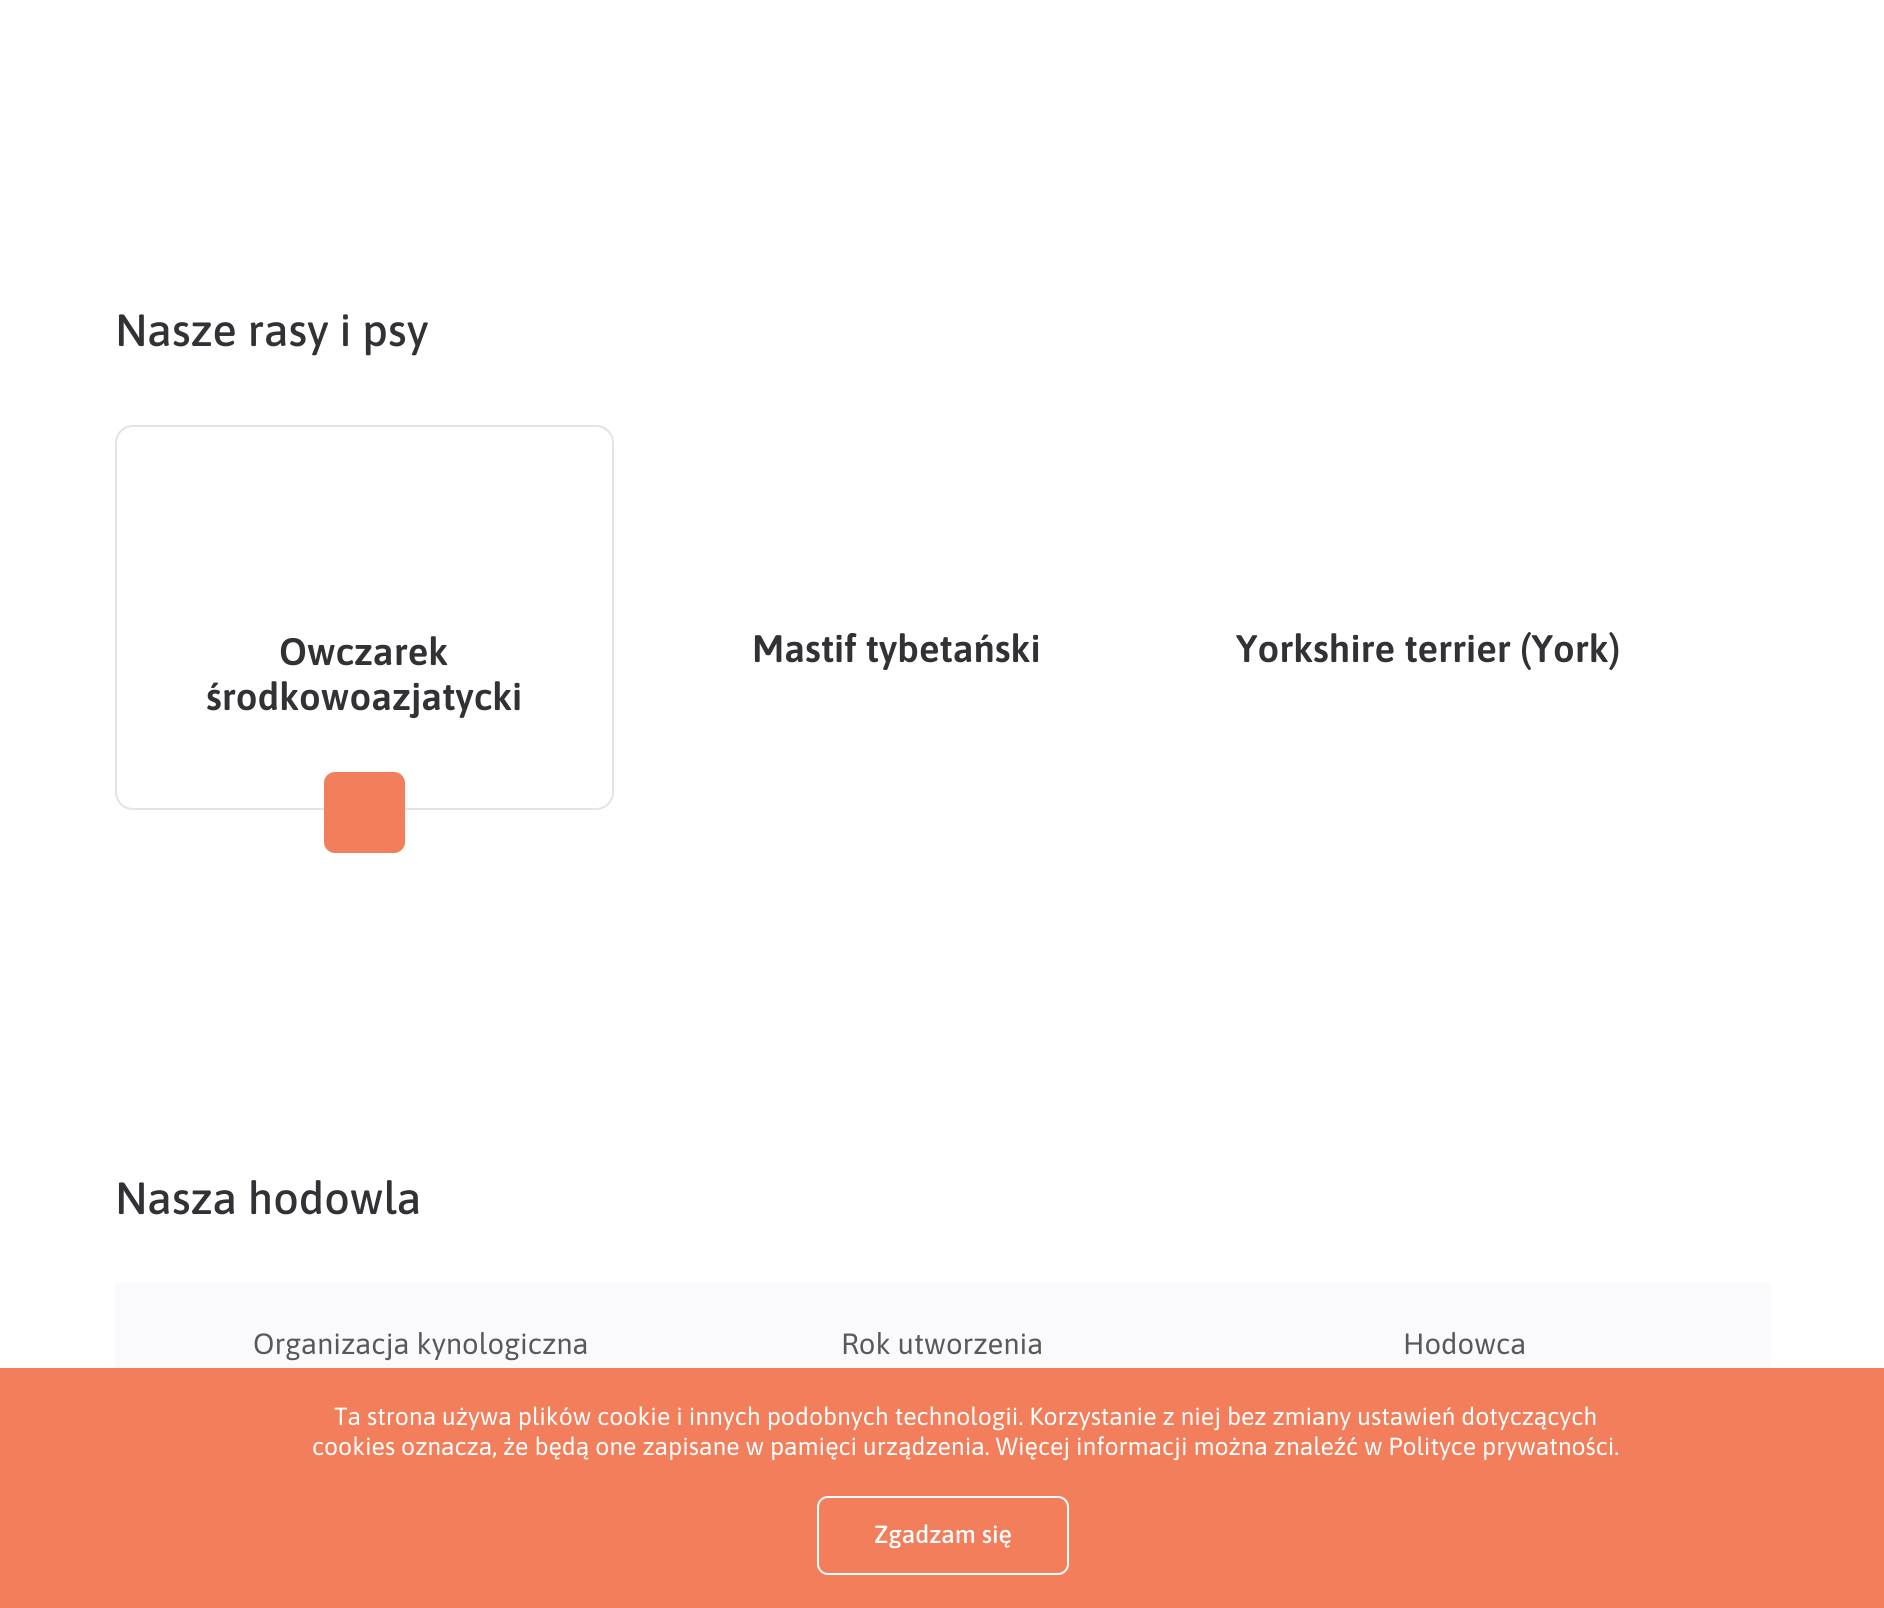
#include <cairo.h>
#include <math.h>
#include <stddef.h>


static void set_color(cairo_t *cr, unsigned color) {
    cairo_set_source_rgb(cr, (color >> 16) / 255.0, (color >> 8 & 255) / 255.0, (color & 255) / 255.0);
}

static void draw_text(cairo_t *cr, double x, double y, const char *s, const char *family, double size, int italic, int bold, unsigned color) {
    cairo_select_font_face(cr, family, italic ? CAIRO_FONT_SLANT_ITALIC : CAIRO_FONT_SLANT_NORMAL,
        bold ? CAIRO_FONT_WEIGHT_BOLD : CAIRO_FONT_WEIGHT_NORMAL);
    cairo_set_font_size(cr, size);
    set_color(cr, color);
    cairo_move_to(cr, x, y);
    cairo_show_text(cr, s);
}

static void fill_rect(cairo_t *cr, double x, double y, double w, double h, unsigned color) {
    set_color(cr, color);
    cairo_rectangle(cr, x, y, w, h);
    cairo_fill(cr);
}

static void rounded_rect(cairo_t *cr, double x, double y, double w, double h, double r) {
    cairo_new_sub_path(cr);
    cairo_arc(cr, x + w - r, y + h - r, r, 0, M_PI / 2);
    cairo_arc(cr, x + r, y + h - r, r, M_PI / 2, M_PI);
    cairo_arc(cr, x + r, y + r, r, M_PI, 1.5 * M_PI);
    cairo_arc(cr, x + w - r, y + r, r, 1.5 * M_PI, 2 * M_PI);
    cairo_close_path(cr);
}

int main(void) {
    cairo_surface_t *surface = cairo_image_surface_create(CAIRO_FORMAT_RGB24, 1884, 1608);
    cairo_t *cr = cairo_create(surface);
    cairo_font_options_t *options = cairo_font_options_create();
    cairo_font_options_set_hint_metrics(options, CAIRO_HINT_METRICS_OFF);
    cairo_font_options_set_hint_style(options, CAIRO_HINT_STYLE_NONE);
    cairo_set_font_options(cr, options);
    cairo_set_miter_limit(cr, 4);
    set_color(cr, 0xFFFFFF);
    cairo_paint(cr);
    draw_text(cr, 115, 346, "Nasze rasy i psy", "Asap Medium", 45, 0, 0, 0x333135);
    rounded_rect(cr, 116, 426, 497, 383, 17);
    set_color(cr, 0xE3E3E8);
    cairo_stroke(cr);
    draw_text(cr, 279, 665, "Owczarek", "Asap SemiBold", 38.25, 0, 0, 0x333135);
    draw_text(cr, 206, 710, "środkowoazjatycki", "Asap SemiBold", 38.25, 0, 0, 0x333135);
    set_color(cr, 0xF27E5B);
    rounded_rect(cr, 324, 772, 81, 81, 11);
    cairo_fill(cr);
    draw_text(cr, 752, 662, "Mastif tybetański", "Asap SemiBold", 38.25, 0, 0, 0x333135);
    draw_text(cr, 1236, 662, "Yorkshire terrier (York)", "Asap SemiBold", 38.25, 0, 0, 0x333135);
    draw_text(cr, 115, 1214, "Nasza hodowla", "Asap Medium", 45, 0, 0, 0x333135);
    fill_rect(cr, 115, 1283, 1656, 85, 0xFAF9FB);
    draw_text(cr, 253, 1354, "Organizacja kynologiczna", "Asap", 29.25, 0, 0, 0x59585B);
    draw_text(cr, 841, 1354, "Rok utworzenia", "Asap", 29.25, 0, 0, 0x59585B);
    draw_text(cr, 1403, 1354, "Hodowca", "Asap", 29.25, 0, 0, 0x59585B);
    fill_rect(cr, 0, 1368, 1884, 240, 0xF27E5B);
    draw_text(cr, 334, 1425, "Ta strona używa plików cookie i innych podobnych technologii. Korzystanie z niej bez zmiany ustawień dotyczących", "Asap", 24.75, 0, 0, 0xFFFFFF);
    draw_text(cr, 312, 1455, "cookies oznacza, że będą one zapisane w pamięci urządzenia. Więcej informacji można znaleźć w Polityce prywatności.", "Asap", 24.75, 0, 0, 0xFFFFFF);
    rounded_rect(cr, 818, 1497, 250, 77, 10);
    cairo_stroke(cr);
    draw_text(cr, 874, 1543, "Zgadzam się", "Asap Medium", 24.75, 0, 0, 0xFFFFFF);
    cairo_surface_write_to_png(surface, "output.png");
    cairo_font_options_destroy(options);
    cairo_destroy(cr);
    cairo_surface_destroy(surface);
    return 0;
}
